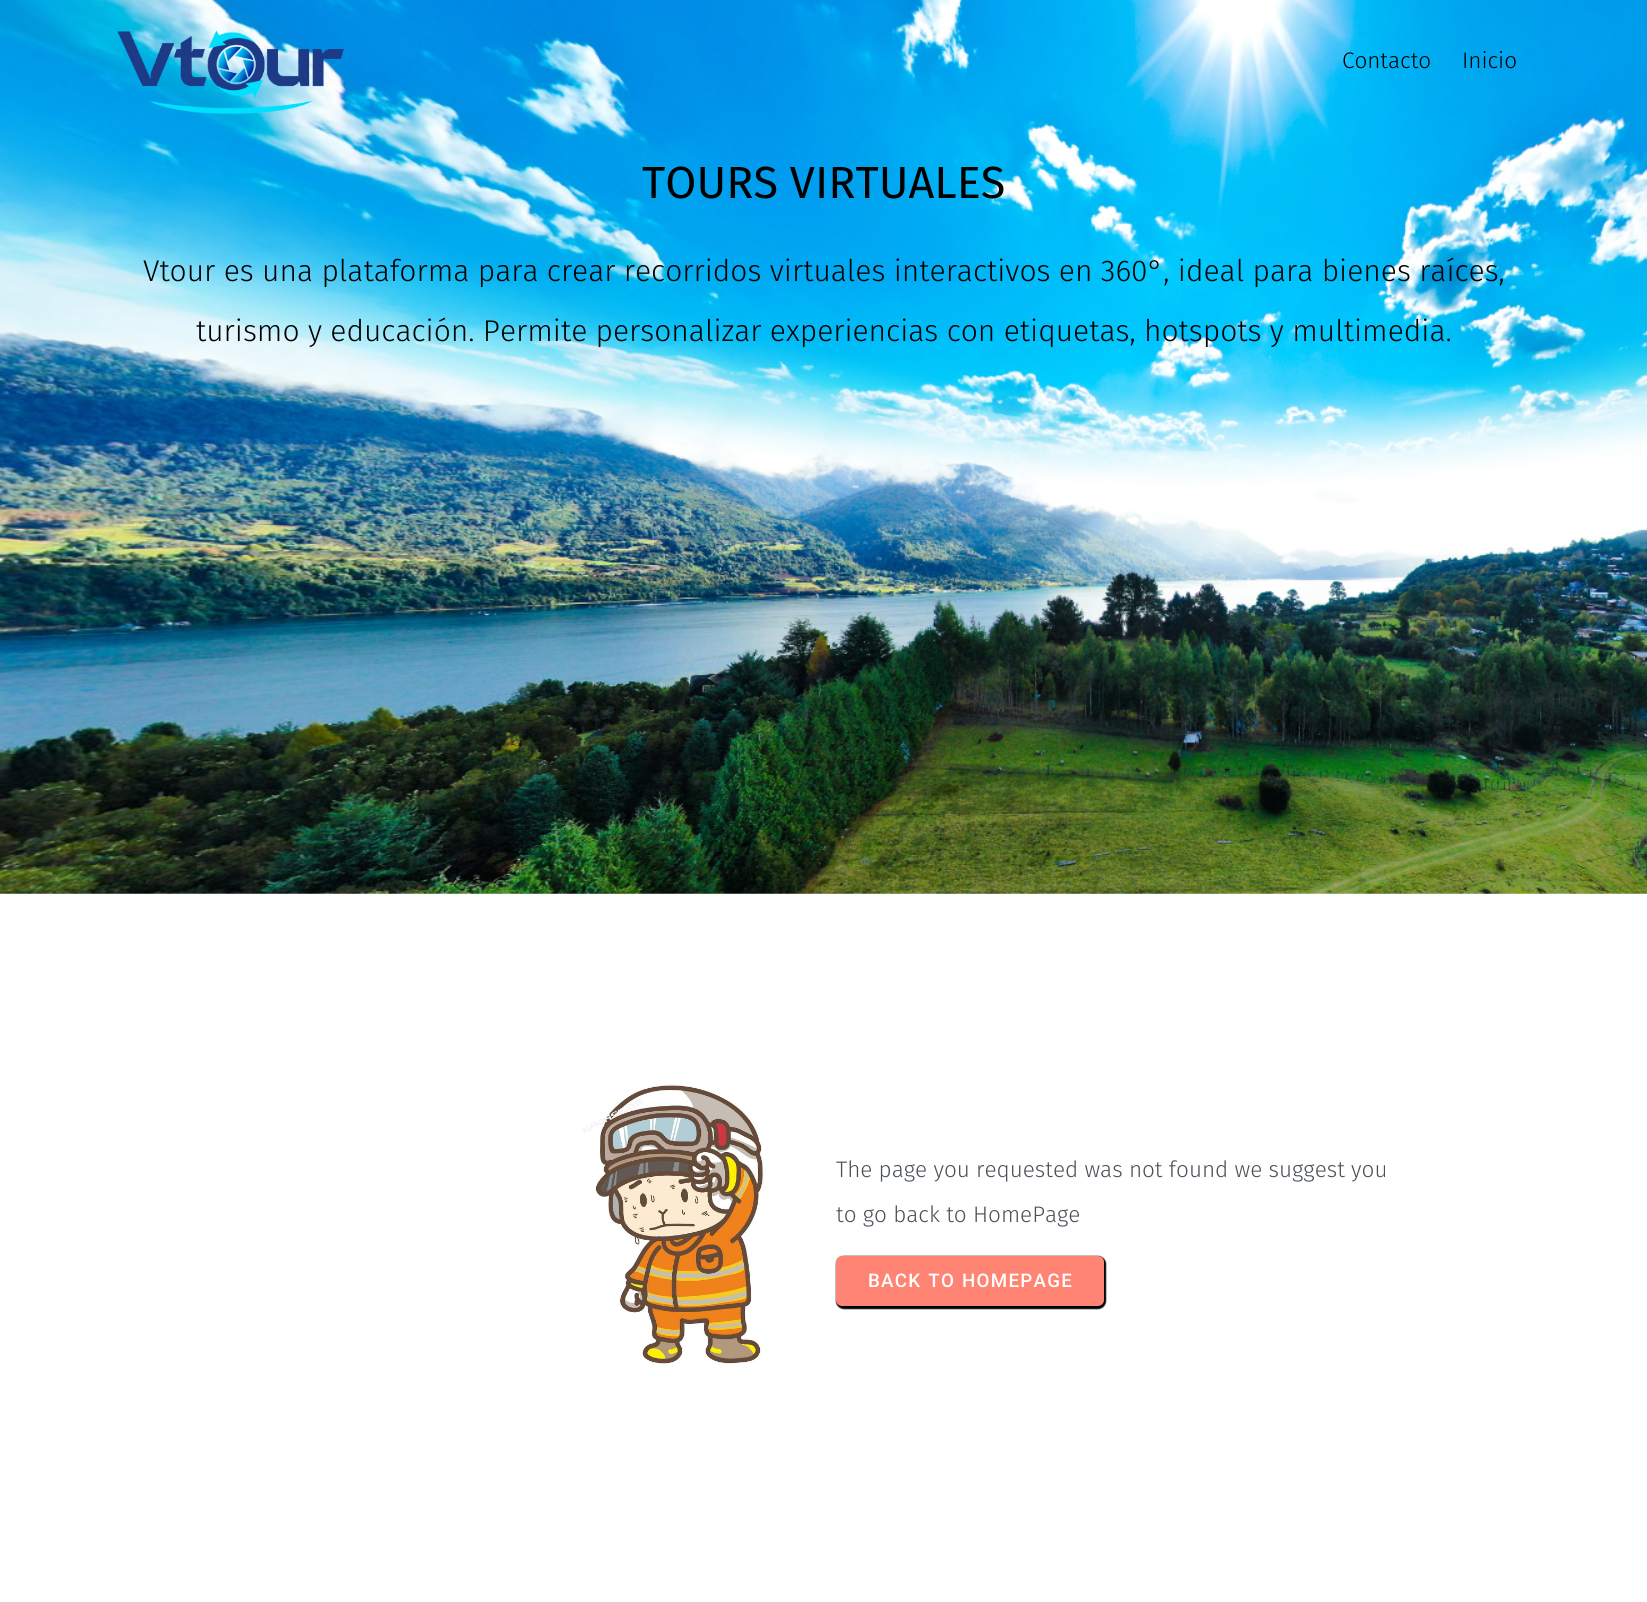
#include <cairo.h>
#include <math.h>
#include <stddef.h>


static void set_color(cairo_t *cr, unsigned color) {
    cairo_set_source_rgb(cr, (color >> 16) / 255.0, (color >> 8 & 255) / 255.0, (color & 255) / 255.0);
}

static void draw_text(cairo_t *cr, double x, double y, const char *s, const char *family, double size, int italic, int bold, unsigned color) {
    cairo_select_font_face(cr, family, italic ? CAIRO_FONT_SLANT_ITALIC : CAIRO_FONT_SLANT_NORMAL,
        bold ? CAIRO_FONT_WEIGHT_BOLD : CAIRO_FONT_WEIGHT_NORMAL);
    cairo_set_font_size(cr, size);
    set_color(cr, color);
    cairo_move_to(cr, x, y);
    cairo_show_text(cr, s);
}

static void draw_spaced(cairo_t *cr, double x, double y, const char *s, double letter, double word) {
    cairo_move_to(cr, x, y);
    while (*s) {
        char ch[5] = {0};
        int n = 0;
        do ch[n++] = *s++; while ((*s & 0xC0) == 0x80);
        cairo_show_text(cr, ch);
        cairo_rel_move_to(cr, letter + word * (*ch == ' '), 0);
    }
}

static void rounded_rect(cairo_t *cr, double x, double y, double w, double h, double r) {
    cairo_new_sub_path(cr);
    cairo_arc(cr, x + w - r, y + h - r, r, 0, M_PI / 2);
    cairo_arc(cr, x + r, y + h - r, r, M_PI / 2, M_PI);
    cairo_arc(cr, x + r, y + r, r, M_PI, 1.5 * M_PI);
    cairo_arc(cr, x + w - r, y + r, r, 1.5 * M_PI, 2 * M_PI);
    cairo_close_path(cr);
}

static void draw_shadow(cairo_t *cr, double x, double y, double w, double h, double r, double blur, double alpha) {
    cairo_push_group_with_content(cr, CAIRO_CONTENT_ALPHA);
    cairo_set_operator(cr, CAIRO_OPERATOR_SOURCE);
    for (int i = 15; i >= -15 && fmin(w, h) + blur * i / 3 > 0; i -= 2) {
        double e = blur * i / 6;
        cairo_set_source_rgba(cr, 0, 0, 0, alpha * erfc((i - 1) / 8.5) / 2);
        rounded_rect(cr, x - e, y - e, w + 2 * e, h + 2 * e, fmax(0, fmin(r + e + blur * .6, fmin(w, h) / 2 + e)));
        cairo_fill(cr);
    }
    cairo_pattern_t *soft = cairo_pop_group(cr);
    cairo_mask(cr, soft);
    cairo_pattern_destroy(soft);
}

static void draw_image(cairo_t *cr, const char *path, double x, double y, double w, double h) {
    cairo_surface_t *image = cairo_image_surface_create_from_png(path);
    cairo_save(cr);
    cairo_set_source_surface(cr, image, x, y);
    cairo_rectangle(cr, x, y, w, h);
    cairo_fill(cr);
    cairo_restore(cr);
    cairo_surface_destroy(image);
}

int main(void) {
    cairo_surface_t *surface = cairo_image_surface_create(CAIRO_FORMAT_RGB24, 1647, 1602);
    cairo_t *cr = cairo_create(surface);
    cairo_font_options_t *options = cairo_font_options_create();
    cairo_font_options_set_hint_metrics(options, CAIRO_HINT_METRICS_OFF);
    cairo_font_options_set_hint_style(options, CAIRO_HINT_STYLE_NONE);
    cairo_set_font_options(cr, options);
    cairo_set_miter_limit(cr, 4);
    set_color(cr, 0xFFFFFF);
    cairo_paint(cr);
    draw_image(cr, "assets/img1.png", 0, 0, 1647, 894);
    draw_image(cr, "assets/img2.png", 117, 30, 227, 84);
    draw_text(cr, 1342, 68, "Contacto", "Fira Sans Light", 22.5, 0, 0, 0x000000);
    draw_text(cr, 1462, 68, "Inicio", "Fira Sans Light", 22.5, 0, 0, 0x000000);
    draw_text(cr, 642, 198, "TOURS VIRTUALES", "Fira Sans", 45, 0, 0, 0x000000);
    draw_text(cr, 143, 281, "Vtour es una plataforma para crear recorridos virtuales interactivos en 360°, ideal para bienes raíces,", "Fira Sans Light", 30, 0, 0, 0x000000);
    draw_text(cr, 196, 341, "turismo y educación. Permite personalizar experiencias con etiquetas, hotspots y multimedia.", "Fira Sans Light", 30, 0, 0, 0x000000);
    draw_image(cr, "assets/img3.png", 583, 1084, 181, 280);
    draw_text(cr, 836, 1177, "The page you requested was not found we suggest you", "Fira Sans Light", 22.5, 0, 0, 0x495057);
    draw_text(cr, 836, 1222, "to go back to HomePage", "Fira Sans Light", 22.5, 0, 0, 0x495057);
    set_color(cr, 0x000000);
    draw_shadow(cr, 836, 1256, 270, 53, 8, 0.5, 1);
    set_color(cr, 0xFF8474);
    rounded_rect(cr, 836, 1256, 268, 50, 6);
    cairo_fill(cr);
    cairo_select_font_face(cr, "Roboto Medium", CAIRO_FONT_SLANT_NORMAL, CAIRO_FONT_WEIGHT_NORMAL);
    cairo_set_font_size(cr, 18.75);
    set_color(cr, 0xFFFFFF);
    draw_spaced(cr, 868, 1287, "BACK TO HOMEPAGE", 1.25, 1);
    cairo_surface_write_to_png(surface, "output.png");
    cairo_font_options_destroy(options);
    cairo_destroy(cr);
    cairo_surface_destroy(surface);
    return 0;
}
